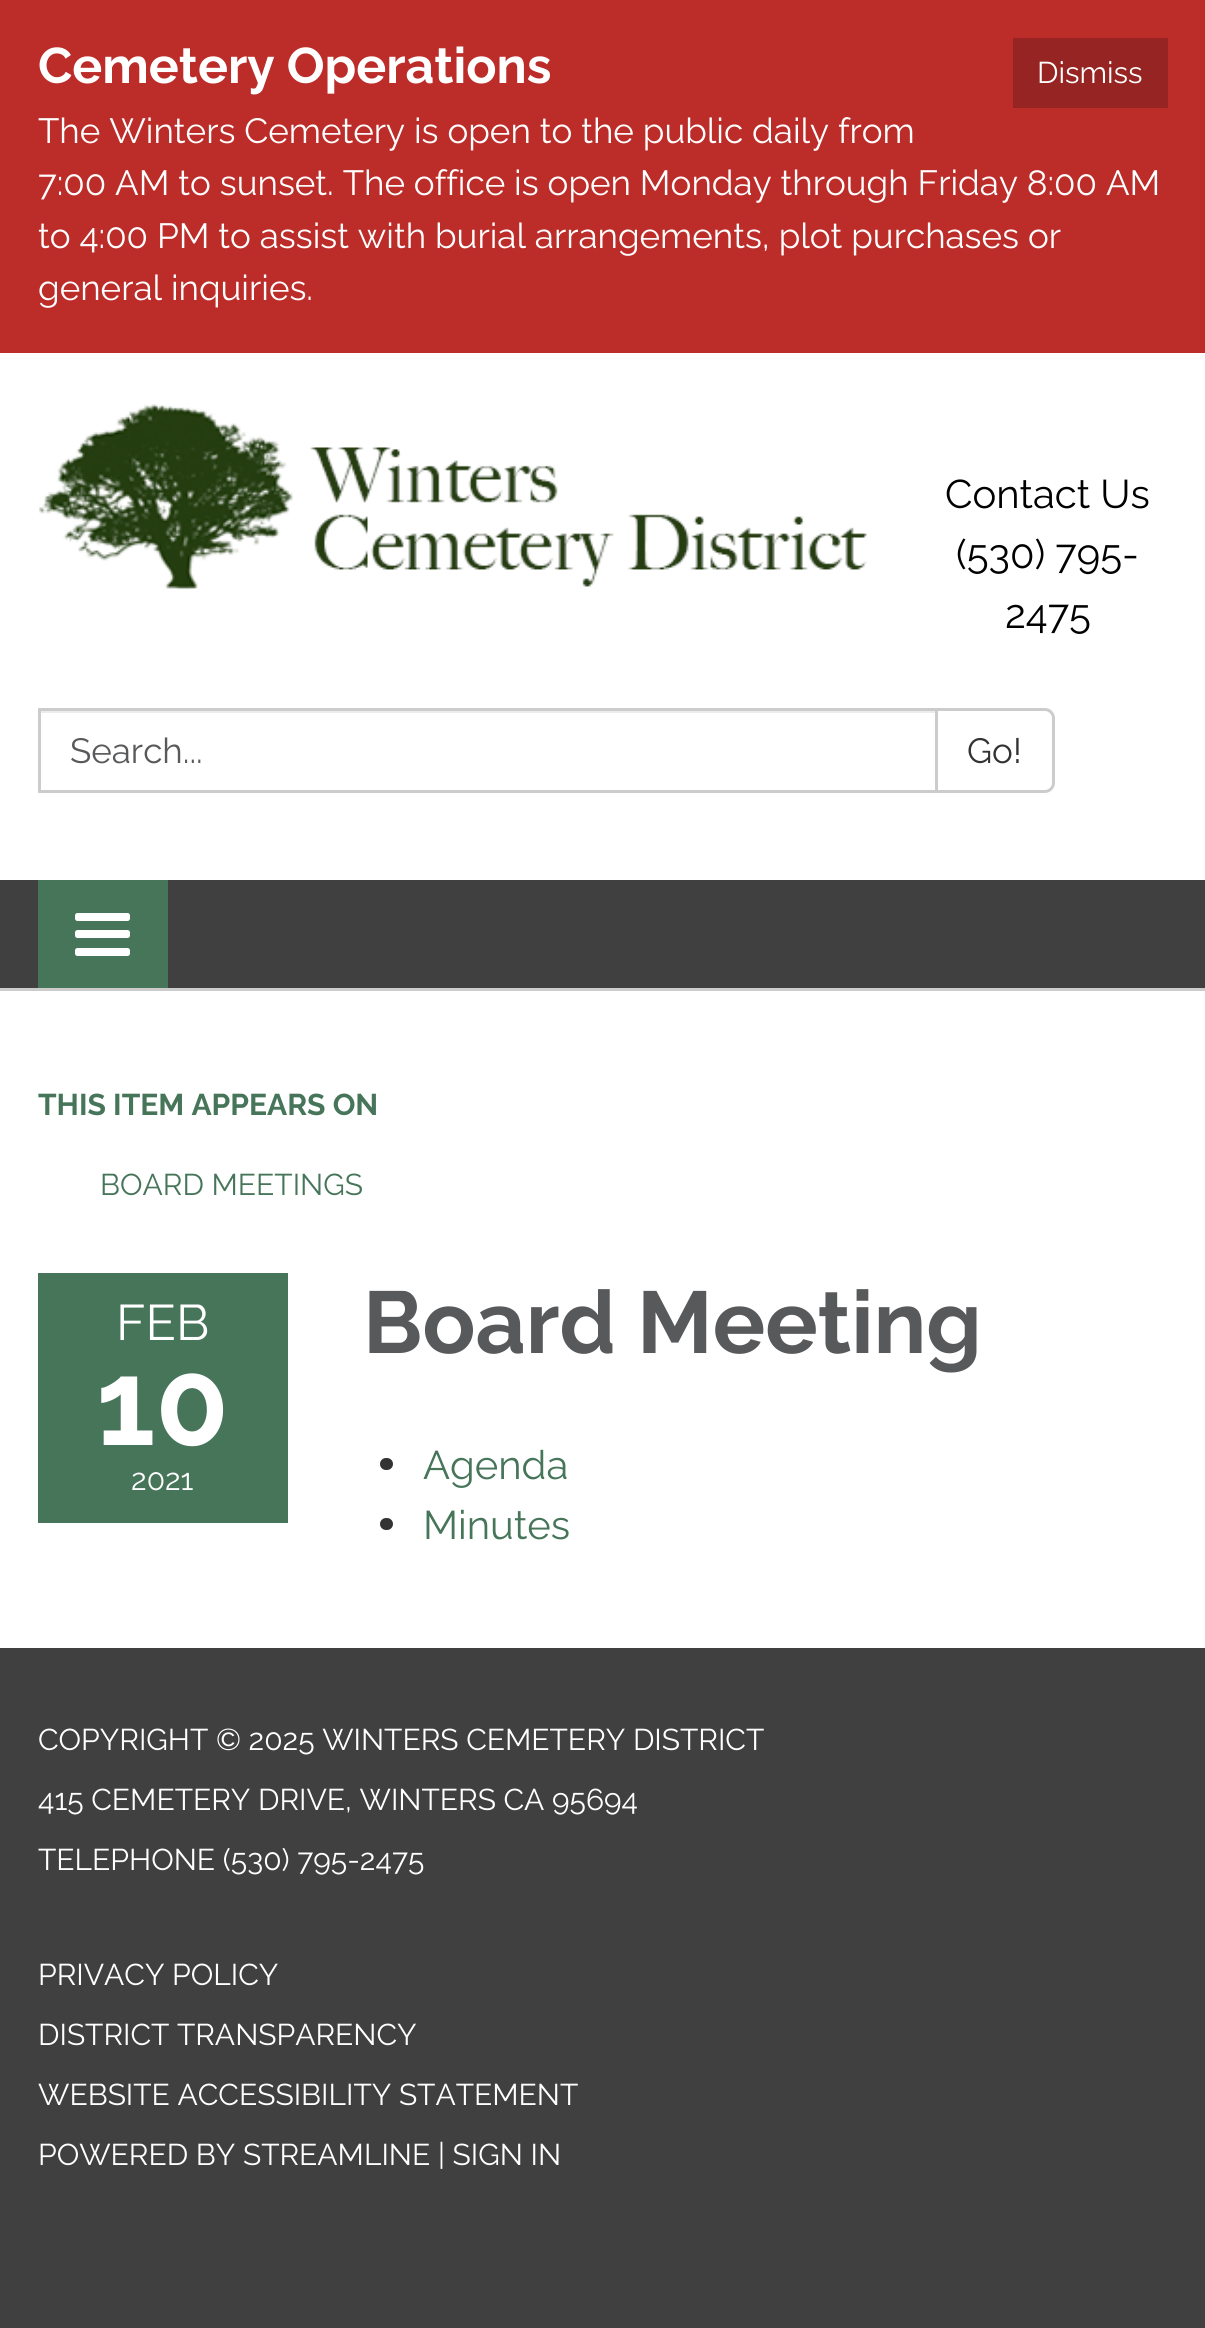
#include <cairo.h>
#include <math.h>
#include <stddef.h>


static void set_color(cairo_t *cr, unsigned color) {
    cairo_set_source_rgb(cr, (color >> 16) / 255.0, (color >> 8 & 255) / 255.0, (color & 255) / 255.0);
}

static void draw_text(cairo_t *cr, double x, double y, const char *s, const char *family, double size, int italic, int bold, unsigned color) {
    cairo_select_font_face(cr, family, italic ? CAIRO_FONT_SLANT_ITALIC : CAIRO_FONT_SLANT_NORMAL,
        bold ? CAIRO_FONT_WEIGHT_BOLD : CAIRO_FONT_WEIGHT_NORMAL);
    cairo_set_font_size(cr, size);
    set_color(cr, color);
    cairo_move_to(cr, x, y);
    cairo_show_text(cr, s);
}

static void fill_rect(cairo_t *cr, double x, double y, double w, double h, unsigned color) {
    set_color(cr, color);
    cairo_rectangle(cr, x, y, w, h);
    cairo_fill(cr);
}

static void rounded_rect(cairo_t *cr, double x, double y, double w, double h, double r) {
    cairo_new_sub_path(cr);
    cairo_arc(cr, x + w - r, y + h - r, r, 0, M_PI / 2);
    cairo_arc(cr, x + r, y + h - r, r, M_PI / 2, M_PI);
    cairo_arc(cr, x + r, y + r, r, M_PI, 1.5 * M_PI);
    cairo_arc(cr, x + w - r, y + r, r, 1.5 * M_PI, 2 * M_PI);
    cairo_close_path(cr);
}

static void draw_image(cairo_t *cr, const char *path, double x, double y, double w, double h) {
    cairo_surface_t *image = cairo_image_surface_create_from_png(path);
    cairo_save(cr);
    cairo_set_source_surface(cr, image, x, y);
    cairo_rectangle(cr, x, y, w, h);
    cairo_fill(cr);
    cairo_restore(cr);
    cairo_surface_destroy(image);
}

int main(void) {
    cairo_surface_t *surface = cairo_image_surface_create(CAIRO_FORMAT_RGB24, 1205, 2328);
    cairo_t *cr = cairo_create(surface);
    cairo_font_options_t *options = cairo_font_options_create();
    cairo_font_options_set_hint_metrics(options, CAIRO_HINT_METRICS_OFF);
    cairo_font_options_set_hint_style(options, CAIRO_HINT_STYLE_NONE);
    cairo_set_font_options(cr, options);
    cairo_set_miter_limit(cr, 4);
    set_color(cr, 0x404041);
    cairo_paint(cr);
    fill_rect(cr, 0, 0, 1205, 353, 0xBC2D2A);
    draw_text(cr, 38, 83, "Cemetery Operations", "Raleway", 50, 0, 1, 0xFFFFFF);
    fill_rect(cr, 1013, 38, 155, 70, 0x962422);
    draw_text(cr, 1037, 83, "Dismiss", "Raleway", 30, 0, 0, 0xFFFFFF);
    draw_text(cr, 38, 143, "The Winters Cemetery is open to the public daily from", "Raleway", 35, 0, 0, 0xFFFFFF);
    draw_text(cr, 38, 195, "7:00 AM to sunset. The office is open Monday through Friday 8:00 AM", "Raleway", 35, 0, 0, 0xFFFFFF);
    draw_text(cr, 38, 248, "to 4:00 PM to assist with burial arrangements, plot purchases or", "Raleway", 35, 0, 0, 0xFFFFFF);
    draw_text(cr, 38, 300, "general inquiries.", "Raleway", 35, 0, 0, 0xFFFFFF);
    fill_rect(cr, 0, 353, 1205, 527, 0xFFFFFF);
    draw_image(cr, "assets/img1.png", 39, 404, 828, 186);
    draw_text(cr, 945, 508, "Contact Us", "Raleway", 40, 0, 0, 0x000000);
    draw_text(cr, 956, 568, "(530) 795-", "Raleway", 40, 0, 0, 0x000000);
    draw_text(cr, 1005, 628, "2475", "Raleway", 40, 0, 0, 0x000000);
    fill_rect(cr, 40, 711, 895, 2, 0xECECEC);
    cairo_rectangle(cr, 39.5, 709.5, 897, 82);
    set_color(cr, 0xCCCCCC);
    cairo_set_line_width(cr, 3);
    cairo_stroke(cr);
    draw_text(cr, 70, 763, "Search...", "Raleway", 35, 0, 0, 0x58595B);
    set_color(cr, 0xFFFFFF);
    cairo_new_path(cr);
    cairo_move_to(cr, 936.5, 709.5);
    cairo_line_to(cr, 1045, 709.5);
    cairo_curve_to(cr, 1049.5, 709.5, 1053.5, 713.5, 1053.5, 718);
    cairo_line_to(cr, 1053.5, 783);
    cairo_curve_to(cr, 1053.5, 787.5, 1049.5, 791.5, 1045, 791.5);
    cairo_line_to(cr, 936.5, 791.5);
    cairo_close_path(cr);
    cairo_fill_preserve(cr);
    set_color(cr, 0xCCCCCC);
    cairo_stroke(cr);
    draw_text(cr, 967, 763, "Go!", "Raleway", 35, 0, 0, 0x333333);
    fill_rect(cr, 38, 880, 130, 108, 0x46755A);
    set_color(cr, 0xFFFFFF);
    rounded_rect(cr, 75, 913, 55, 8, 2.5);
    cairo_fill(cr);
    rounded_rect(cr, 75, 930, 55, 8, 2.5);
    cairo_fill(cr);
    rounded_rect(cr, 75, 948, 55, 8, 2.5);
    cairo_fill(cr);
    fill_rect(cr, 0, 991, 1205, 657, 0xFFFFFF);
    fill_rect(cr, 0, 988, 1205, 3, 0xCCCCCC);
    draw_text(cr, 38, 1115, "THIS ITEM APPEARS ON", "Raleway", 30, 0, 1, 0x46755A);
    draw_text(cr, 100, 1195, "BOARD MEETINGS", "Raleway", 30, 0, 0, 0x46755A);
    fill_rect(cr, 38, 1273, 250, 250, 0x46755A);
    draw_text(cr, 116, 1340, "FEB", "Raleway", 50, 0, 0, 0xFFFFFF);
    draw_text(cr, 96, 1445, "10", "Raleway", 120, 0, 1, 0xFFFFFF);
    draw_text(cr, 131, 1490, "2021", "Raleway", 30, 0, 0, 0xFFFFFF);
    draw_text(cr, 363, 1353, "Board Meeting", "Raleway", 87.5, 0, 1, 0x58595B);
    set_color(cr, 0x333333);
    rounded_rect(cr, 380, 1458, 13, 12, 6);
    cairo_fill(cr);
    draw_text(cr, 423, 1479, "Agenda", "Raleway", 40, 0, 0, 0x46755A);
    set_color(cr, 0x333333);
    rounded_rect(cr, 380, 1518, 13, 12, 6);
    cairo_fill(cr);
    draw_text(cr, 423, 1539, "Minutes", "Raleway", 40, 0, 0, 0x46755A);
    draw_text(cr, 38, 1750, "COPYRIGHT © 2025 WINTERS CEMETERY DISTRICT", "Raleway", 30, 0, 0, 0xFFFFFF);
    draw_text(cr, 38, 1810, "415 CEMETERY DRIVE, WINTERS CA 95694", "Raleway", 30, 0, 0, 0xFFFFFF);
    draw_text(cr, 38, 1870, "TELEPHONE (530) 795-2475", "Raleway", 30, 0, 0, 0xFFFFFF);
    draw_text(cr, 38, 1985, "PRIVACY POLICY", "Raleway", 30, 0, 0, 0xFFFFFF);
    draw_text(cr, 38, 2045, "DISTRICT TRANSPARENCY", "Raleway", 30, 0, 0, 0xFFFFFF);
    draw_text(cr, 38, 2105, "WEBSITE ACCESSIBILITY STATEMENT", "Raleway", 30, 0, 0, 0xFFFFFF);
    draw_text(cr, 38, 2165, "POWERED BY STREAMLINE | SIGN IN", "Raleway", 30, 0, 0, 0xFFFFFF);
    cairo_surface_write_to_png(surface, "output.png");
    cairo_font_options_destroy(options);
    cairo_destroy(cr);
    cairo_surface_destroy(surface);
    return 0;
}
